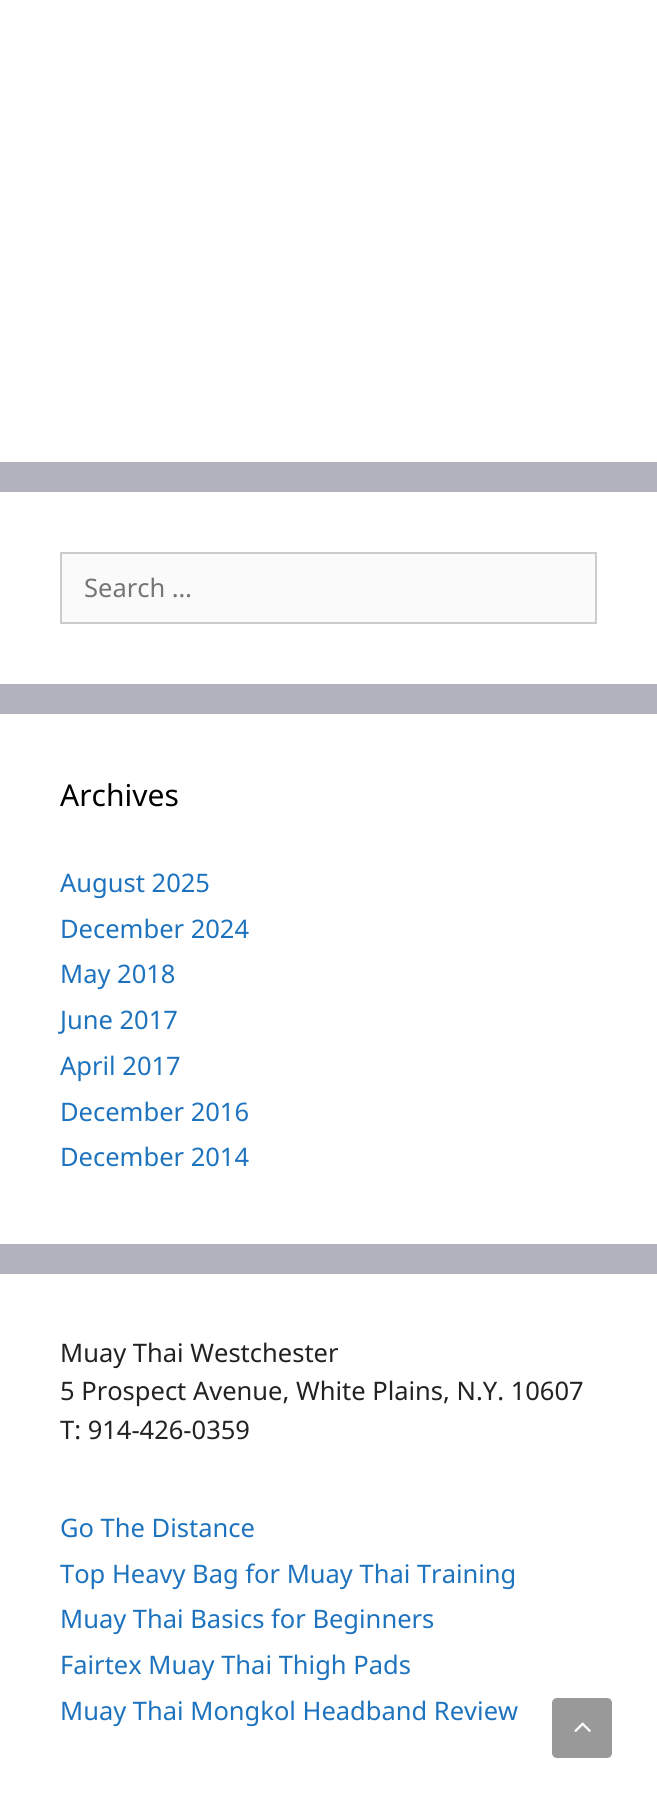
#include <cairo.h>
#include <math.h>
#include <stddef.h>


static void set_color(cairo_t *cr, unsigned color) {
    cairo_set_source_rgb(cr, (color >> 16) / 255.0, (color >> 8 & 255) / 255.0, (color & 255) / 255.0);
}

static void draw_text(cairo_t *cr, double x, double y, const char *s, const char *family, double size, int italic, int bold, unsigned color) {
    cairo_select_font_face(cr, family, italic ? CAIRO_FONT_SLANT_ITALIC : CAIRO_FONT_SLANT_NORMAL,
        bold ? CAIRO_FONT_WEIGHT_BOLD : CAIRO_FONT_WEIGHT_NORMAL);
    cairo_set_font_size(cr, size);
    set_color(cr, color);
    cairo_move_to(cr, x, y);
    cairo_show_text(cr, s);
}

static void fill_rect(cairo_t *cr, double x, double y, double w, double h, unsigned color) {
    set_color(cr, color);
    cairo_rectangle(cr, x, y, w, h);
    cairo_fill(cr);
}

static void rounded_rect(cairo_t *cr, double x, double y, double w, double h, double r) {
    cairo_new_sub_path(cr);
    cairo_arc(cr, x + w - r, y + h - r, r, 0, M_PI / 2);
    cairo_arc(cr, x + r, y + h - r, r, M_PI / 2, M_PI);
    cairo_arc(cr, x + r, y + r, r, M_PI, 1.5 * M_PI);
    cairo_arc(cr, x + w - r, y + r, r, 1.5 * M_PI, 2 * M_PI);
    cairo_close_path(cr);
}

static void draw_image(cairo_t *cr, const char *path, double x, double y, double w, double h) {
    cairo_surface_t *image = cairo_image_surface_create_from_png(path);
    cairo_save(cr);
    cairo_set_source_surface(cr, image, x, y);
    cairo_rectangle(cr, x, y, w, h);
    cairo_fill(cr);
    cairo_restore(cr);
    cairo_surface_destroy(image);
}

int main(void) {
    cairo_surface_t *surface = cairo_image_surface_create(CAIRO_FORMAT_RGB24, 657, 1802);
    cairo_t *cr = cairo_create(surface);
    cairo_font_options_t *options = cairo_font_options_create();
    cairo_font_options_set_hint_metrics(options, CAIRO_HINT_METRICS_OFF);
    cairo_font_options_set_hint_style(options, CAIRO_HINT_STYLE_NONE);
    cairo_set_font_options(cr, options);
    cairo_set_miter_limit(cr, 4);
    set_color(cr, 0xB2B2BE);
    cairo_paint(cr);
    fill_rect(cr, 0, 0, 657, 462, 0xFFFFFF);
    fill_rect(cr, 0, 492, 657, 192, 0xFFFFFF);
    set_color(cr, 0xFAFAFA);
    cairo_rectangle(cr, 61, 553, 535, 70);
    cairo_fill_preserve(cr);
    set_color(cr, 0xCCCCCC);
    cairo_stroke(cr);
    draw_text(cr, 84, 597, "Search …", "Noto Sans", 25.5, 0, 0, 0x757575);
    fill_rect(cr, 0, 714, 657, 530, 0xFFFFFF);
    draw_text(cr, 60, 806, "Archives", "Noto Sans", 30, 0, 0, 0x000000);
    draw_text(cr, 60, 892, "August 2025", "Noto Sans", 25.5, 0, 0, 0x1E73BE);
    draw_text(cr, 60, 938, "December 2024", "Noto Sans", 25.5, 0, 0, 0x1E73BE);
    draw_text(cr, 60, 983, "May 2018", "Noto Sans", 25.5, 0, 0, 0x1E73BE);
    draw_text(cr, 60, 1029, "June 2017", "Noto Sans", 25.5, 0, 0, 0x1E73BE);
    draw_text(cr, 60, 1075, "April 2017", "Noto Sans", 25.5, 0, 0, 0x1E73BE);
    draw_text(cr, 60, 1121, "December 2016", "Noto Sans", 25.5, 0, 0, 0x1E73BE);
    draw_text(cr, 60, 1166, "December 2014", "Noto Sans", 25.5, 0, 0, 0x1E73BE);
    fill_rect(cr, 0, 1274, 657, 528, 0xFFFFFF);
    draw_text(cr, 60, 1362, "Muay Thai Westchester", "Noto Sans", 25.5, 0, 0, 0x222222);
    draw_text(cr, 60, 1400, "5 Prospect Avenue, White Plains, N.Y. 10607", "Noto Sans", 25.5, 0, 0, 0x222222);
    draw_text(cr, 60, 1439, "T: 914-426-0359", "Noto Sans", 25.5, 0, 0, 0x222222);
    draw_text(cr, 60, 1537, "Go The Distance", "Noto Sans", 25.5, 0, 0, 0x1E73BE);
    draw_text(cr, 60, 1583, "Top Heavy Bag for Muay Thai Training", "Noto Sans", 25.5, 0, 0, 0x1E73BE);
    draw_text(cr, 60, 1628, "Muay Thai Basics for Beginners", "Noto Sans", 25.5, 0, 0, 0x1E73BE);
    draw_text(cr, 60, 1674, "Fairtex Muay Thai Thigh Pads", "Noto Sans", 25.5, 0, 0, 0x1E73BE);
    draw_text(cr, 60, 1720, "Muay Thai Mongkol Headband Review", "Noto Sans", 25.5, 0, 0, 0x1E73BE);
    set_color(cr, 0x999999);
    rounded_rect(cr, 552, 1698, 60, 60, 5);
    cairo_fill(cr);
    draw_image(cr, "assets/img1.png", 574, 1722, 17, 10);
    cairo_surface_write_to_png(surface, "output.png");
    cairo_font_options_destroy(options);
    cairo_destroy(cr);
    cairo_surface_destroy(surface);
    return 0;
}
